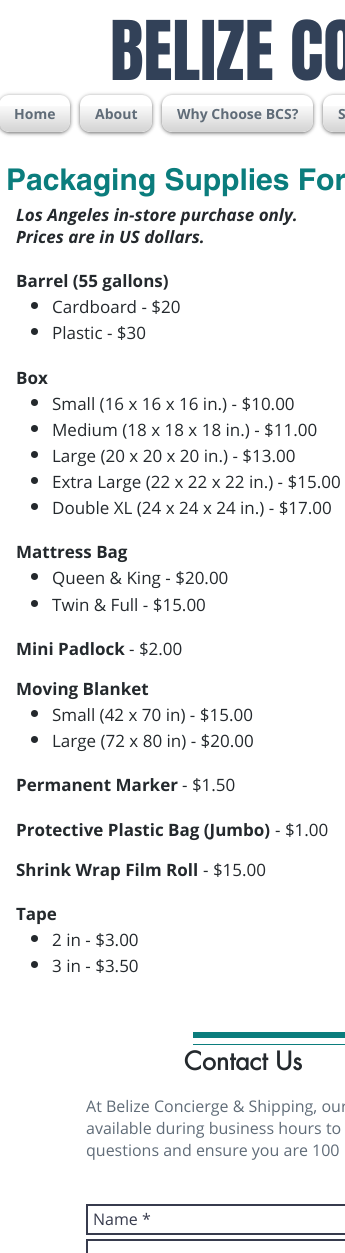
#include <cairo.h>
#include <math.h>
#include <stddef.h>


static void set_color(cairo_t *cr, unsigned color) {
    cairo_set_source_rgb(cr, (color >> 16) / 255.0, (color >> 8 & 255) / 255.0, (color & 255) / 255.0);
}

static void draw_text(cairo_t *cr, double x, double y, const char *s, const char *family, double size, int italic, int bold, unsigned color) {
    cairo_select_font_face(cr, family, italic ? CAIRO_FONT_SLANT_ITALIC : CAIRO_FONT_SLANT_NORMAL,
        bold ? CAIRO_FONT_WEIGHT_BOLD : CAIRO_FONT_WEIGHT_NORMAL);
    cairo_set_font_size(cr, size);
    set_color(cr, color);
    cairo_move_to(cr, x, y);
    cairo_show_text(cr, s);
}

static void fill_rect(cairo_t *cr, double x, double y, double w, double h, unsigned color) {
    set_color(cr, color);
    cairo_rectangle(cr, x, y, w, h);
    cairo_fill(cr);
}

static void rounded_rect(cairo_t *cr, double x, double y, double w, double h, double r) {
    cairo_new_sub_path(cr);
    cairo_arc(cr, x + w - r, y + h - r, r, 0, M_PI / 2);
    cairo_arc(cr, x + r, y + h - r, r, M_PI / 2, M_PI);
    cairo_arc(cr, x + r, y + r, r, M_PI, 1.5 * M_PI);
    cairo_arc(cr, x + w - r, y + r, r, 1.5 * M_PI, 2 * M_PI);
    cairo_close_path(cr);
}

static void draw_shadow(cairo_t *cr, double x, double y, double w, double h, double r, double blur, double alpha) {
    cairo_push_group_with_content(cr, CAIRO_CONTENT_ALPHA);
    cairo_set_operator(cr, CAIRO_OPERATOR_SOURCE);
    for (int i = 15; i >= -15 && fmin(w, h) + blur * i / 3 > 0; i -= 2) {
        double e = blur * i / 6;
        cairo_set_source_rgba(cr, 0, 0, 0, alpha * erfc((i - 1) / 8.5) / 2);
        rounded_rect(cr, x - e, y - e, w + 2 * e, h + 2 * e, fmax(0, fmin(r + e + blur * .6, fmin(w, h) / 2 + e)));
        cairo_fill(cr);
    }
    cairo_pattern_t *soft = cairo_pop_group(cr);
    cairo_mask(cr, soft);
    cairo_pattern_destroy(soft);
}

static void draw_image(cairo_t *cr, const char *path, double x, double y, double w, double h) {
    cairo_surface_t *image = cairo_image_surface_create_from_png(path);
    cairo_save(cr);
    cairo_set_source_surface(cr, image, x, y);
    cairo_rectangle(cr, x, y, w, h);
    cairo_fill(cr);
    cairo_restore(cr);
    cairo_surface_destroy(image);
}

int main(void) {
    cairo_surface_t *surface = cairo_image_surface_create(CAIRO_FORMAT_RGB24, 345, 1253);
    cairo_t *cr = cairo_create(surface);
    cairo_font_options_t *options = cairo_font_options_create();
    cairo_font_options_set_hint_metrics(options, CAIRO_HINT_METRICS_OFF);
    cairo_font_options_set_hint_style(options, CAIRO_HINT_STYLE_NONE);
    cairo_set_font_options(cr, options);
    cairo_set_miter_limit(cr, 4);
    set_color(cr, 0xFFFFFF);
    cairo_paint(cr);
    draw_text(cr, 110, 80, "BELIZE CO", "Anton", 70, 0, 0, 0x324158);
    set_color(cr, 0x000000);
    draw_shadow(cr, -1, 96, 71, 37, 10, 2, 0.6);
    set_color(cr, 0xFFFFFF);
    rounded_rect(cr, -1, 95, 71, 37, 10);
    cairo_fill(cr);
    draw_image(cr, "assets/img1.png", 0, 106, 70, 26);
    draw_text(cr, 14, 119, "Home", "Open Sans", 14, 0, 1, 0x606C78);
    set_color(cr, 0x000000);
    draw_shadow(cr, 80, 96, 72, 37, 10, 2, 0.6);
    set_color(cr, 0xFFFFFF);
    rounded_rect(cr, 80, 95, 72, 37, 10);
    cairo_fill(cr);
    draw_image(cr, "assets/img2.png", 80, 106, 72, 26);
    draw_text(cr, 95, 119, "About", "Open Sans", 14, 0, 1, 0x606C78);
    set_color(cr, 0x000000);
    draw_shadow(cr, 162, 96, 151, 37, 10, 2, 0.6);
    set_color(cr, 0xFFFFFF);
    rounded_rect(cr, 162, 95, 151, 37, 10);
    cairo_fill(cr);
    draw_image(cr, "assets/img3.png", 162, 106, 151, 26);
    draw_text(cr, 177, 119, "Why Choose BCS?", "Open Sans", 14, 0, 1, 0x606C78);
    set_color(cr, 0x000000);
    draw_shadow(cr, 323, 96, 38, 37, 10, 2, 0.6);
    set_color(cr, 0xFFFFFF);
    rounded_rect(cr, 323, 95, 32, 37, 10);
    cairo_fill(cr);
    draw_image(cr, "assets/img4.png", 323, 106, 22, 26);
    draw_text(cr, 338, 119, "S", "Open Sans", 14, 0, 1, 0x606C78);
    draw_text(cr, 6, 190, "Packaging Supplies For", "helvetica", 30, 0, 1, 0x0B7D7D);
    draw_text(cr, 16, 221, "Los Angeles in-store purchase only.", "Open Sans", 17, 1, 1, 0x24292D);
    draw_text(cr, 16, 243, "Prices are in US dollars.", "Open Sans", 17, 1, 1, 0x24292D);
    draw_text(cr, 16, 287, "Barrel (55 gallons)", "Open Sans", 17, 0, 1, 0x24292D);
    cairo_new_path(cr);
    cairo_arc(cr, 34.5, 305.5, 3.5, 0, 2 * M_PI);
    cairo_fill(cr);
    draw_text(cr, 52, 313, "Cardboard - $20", "Open Sans", 17, 0, 0, 0x24292D);
    cairo_new_path(cr);
    cairo_arc(cr, 34.5, 331.5, 3.5, 0, 2 * M_PI);
    cairo_fill(cr);
    draw_text(cr, 52, 339, "Plastic - $30", "Open Sans", 17, 0, 0, 0x24292D);
    draw_text(cr, 16, 384, "Box", "Open Sans", 17, 0, 1, 0x24292D);
    cairo_new_path(cr);
    cairo_arc(cr, 34.5, 402.5, 3.5, 0, 2 * M_PI);
    cairo_fill(cr);
    draw_text(cr, 52, 410, "Small (16 x 16 x 16 in.) - $10.00", "Open Sans", 17, 0, 0, 0x24292D);
    cairo_new_path(cr);
    cairo_arc(cr, 34.5, 428.5, 3.5, 0, 2 * M_PI);
    cairo_fill(cr);
    draw_text(cr, 52, 436, "Medium (18 x 18 x 18 in.) - $11.00", "Open Sans", 17, 0, 0, 0x24292D);
    cairo_new_path(cr);
    cairo_arc(cr, 34.5, 454.5, 3.5, 0, 2 * M_PI);
    cairo_fill(cr);
    draw_text(cr, 52, 462, "Large (20 x 20 x 20 in.) - $13.00", "Open Sans", 17, 0, 0, 0x24292D);
    cairo_new_path(cr);
    cairo_arc(cr, 34.5, 480.5, 3.5, 0, 2 * M_PI);
    cairo_fill(cr);
    draw_text(cr, 52, 488, "Extra Large (22 x 22 x 22 in.) - $15.00", "Open Sans", 17, 0, 0, 0x24292D);
    cairo_new_path(cr);
    cairo_arc(cr, 34.5, 506.5, 3.5, 0, 2 * M_PI);
    cairo_fill(cr);
    draw_text(cr, 52, 514, "Double XL (24 x 24 x 24 in.) - $17.00", "Open Sans", 17, 0, 0, 0x24292D);
    draw_text(cr, 16, 558, "Mattress Bag", "Open Sans", 17, 0, 1, 0x24292D);
    cairo_new_path(cr);
    cairo_arc(cr, 34.5, 576.5, 3.5, 0, 2 * M_PI);
    cairo_fill(cr);
    draw_text(cr, 52, 584, "Queen & King - $20.00", "Open Sans", 17, 0, 0, 0x24292D);
    cairo_new_path(cr);
    cairo_arc(cr, 34.5, 603.5, 3.5, 0, 2 * M_PI);
    cairo_fill(cr);
    draw_text(cr, 52, 611, "Twin & Full - $15.00", "Open Sans", 17, 0, 0, 0x24292D);
    draw_text(cr, 16, 655, "Mini Padlock", "Open Sans", 17, 0, 1, 0x24292D);
    draw_text(cr, 129, 655, "- $2.00", "Open Sans", 17, 0, 0, 0x24292D);
    draw_text(cr, 16, 695, "Moving Blanket", "Open Sans", 17, 0, 1, 0x24292D);
    cairo_new_path(cr);
    cairo_arc(cr, 34.5, 713.5, 3.5, 0, 2 * M_PI);
    cairo_fill(cr);
    draw_text(cr, 52, 721, "Small (42 x 70 in) - $15.00", "Open Sans", 17, 0, 0, 0x24292D);
    cairo_new_path(cr);
    cairo_arc(cr, 34.5, 739.5, 3.5, 0, 2 * M_PI);
    cairo_fill(cr);
    draw_text(cr, 52, 747, "Large (72 x 80 in) - $20.00", "Open Sans", 17, 0, 0, 0x24292D);
    draw_text(cr, 16, 791, "Permanent Marker", "Open Sans", 17, 0, 1, 0x24292D);
    draw_text(cr, 182, 791, "- $1.50", "Open Sans", 17, 0, 0, 0x24292D);
    draw_text(cr, 16, 836, "Protective Plastic Bag (Jumbo)", "Open Sans", 17, 0, 1, 0x24292D);
    draw_text(cr, 275, 836, "- $1.00", "Open Sans", 17, 0, 0, 0x24292D);
    draw_text(cr, 16, 876, "Shrink Wrap Film Roll", "Open Sans", 17, 0, 1, 0x24292D);
    draw_text(cr, 203, 876, "- $15.00", "Open Sans", 17, 0, 0, 0x24292D);
    draw_text(cr, 16, 920, "Tape", "Open Sans", 17, 0, 1, 0x24292D);
    cairo_new_path(cr);
    cairo_arc(cr, 34.5, 938.5, 3.5, 0, 2 * M_PI);
    cairo_fill(cr);
    draw_text(cr, 52, 946, "2 in - $3.00", "Open Sans", 17, 0, 0, 0x24292D);
    cairo_new_path(cr);
    cairo_arc(cr, 34.5, 964.5, 3.5, 0, 2 * M_PI);
    cairo_fill(cr);
    draw_text(cr, 52, 972, "3 in - $3.50", "Open Sans", 17, 0, 0, 0x24292D);
    fill_rect(cr, 193, 1032, 152, 6, 0x0B7D7D);
    fill_rect(cr, 193, 1044, 152, 1, 0x0B7D7D);
    draw_text(cr, 184, 1070, "Contact Us", "futura", 25, 0, 1, 0x24292D);
    draw_text(cr, 86, 1112, "At Belize Concierge & Shipping, our", "Open Sans", 16, 0, 0, 0x606C78);
    draw_text(cr, 86, 1134, "available during business hours to", "Open Sans", 16, 0, 0, 0x606C78);
    draw_text(cr, 86, 1156, "questions and ensure you are 100", "Open Sans", 16, 0, 0, 0x606C78);
    cairo_rectangle(cr, 87, 1205, 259, 29);
    set_color(cr, 0x373B4D);
    cairo_stroke(cr);
    draw_text(cr, 93, 1225, "Name *", "Open Sans", 16, 0, 0, 0x373B4D);
    cairo_rectangle(cr, 87, 1240, 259, 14);
    cairo_stroke(cr);
    cairo_surface_write_to_png(surface, "output.png");
    cairo_font_options_destroy(options);
    cairo_destroy(cr);
    cairo_surface_destroy(surface);
    return 0;
}
